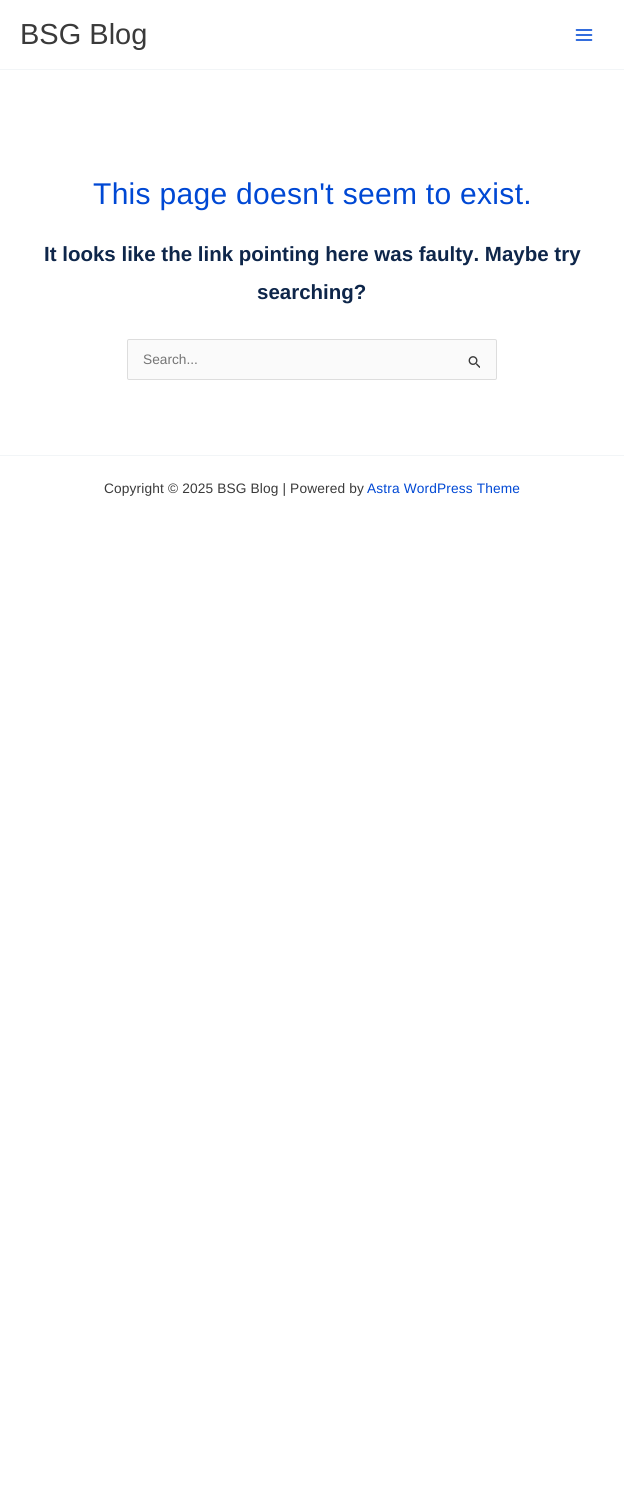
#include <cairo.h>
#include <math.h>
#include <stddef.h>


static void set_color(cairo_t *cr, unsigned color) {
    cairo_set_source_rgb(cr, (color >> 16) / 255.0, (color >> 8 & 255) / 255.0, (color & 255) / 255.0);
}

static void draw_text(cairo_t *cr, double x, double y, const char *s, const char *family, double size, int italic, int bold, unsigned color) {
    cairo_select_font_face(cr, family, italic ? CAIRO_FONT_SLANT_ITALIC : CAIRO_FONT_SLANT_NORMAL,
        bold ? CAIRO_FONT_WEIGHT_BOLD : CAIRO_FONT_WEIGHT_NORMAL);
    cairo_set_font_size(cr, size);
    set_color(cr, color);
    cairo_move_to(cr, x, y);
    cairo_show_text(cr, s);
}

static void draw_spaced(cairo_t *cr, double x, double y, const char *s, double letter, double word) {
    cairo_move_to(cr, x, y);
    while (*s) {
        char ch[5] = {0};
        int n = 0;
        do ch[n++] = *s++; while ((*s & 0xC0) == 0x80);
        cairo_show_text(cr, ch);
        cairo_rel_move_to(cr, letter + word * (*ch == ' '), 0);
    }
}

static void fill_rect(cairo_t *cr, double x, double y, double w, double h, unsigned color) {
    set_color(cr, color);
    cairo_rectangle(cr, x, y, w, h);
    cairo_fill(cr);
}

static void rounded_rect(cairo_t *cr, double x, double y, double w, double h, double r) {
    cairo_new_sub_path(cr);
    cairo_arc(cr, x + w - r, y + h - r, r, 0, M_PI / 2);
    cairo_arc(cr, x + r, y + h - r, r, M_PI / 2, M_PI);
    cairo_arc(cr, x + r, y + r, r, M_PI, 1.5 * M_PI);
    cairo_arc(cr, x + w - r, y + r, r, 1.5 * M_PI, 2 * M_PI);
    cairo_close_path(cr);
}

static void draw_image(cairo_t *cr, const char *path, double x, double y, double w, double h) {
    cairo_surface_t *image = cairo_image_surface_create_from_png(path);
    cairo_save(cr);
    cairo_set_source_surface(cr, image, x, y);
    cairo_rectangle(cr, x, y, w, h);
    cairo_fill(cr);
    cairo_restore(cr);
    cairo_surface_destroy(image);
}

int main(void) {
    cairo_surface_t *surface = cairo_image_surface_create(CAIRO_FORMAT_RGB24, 624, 1497);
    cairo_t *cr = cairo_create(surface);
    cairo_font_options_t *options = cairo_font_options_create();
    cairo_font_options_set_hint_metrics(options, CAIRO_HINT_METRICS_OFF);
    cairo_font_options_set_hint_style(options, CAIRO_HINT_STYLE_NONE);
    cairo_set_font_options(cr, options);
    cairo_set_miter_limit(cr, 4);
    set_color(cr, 0xFFFFFF);
    cairo_paint(cr);
    fill_rect(cr, 0, 69, 624, 1, 0xF2F5F7);
    draw_text(cr, 20, 44, "BSG Blog", "Liberation Sans", 29, 0, 0, 0x3A3A3A);
    draw_image(cr, "assets/img1.png", 575, 29, 18, 12);
    cairo_set_font_size(cr, 30);
    set_color(cr, 0x0048D4);
    draw_spaced(cr, 93, 204, "This page doesn't seem to exist.", 0.3, 0);
    draw_text(cr, 44, 261, "It looks like the link pointing here was faulty. Maybe try", "Liberation Sans", 20.5, 0, 1, 0x0E264A);
    draw_text(cr, 257, 299, "searching?", "Liberation Sans", 20.5, 0, 1, 0x0E264A);
    set_color(cr, 0xFAFAFA);
    rounded_rect(cr, 127.5, 339.5, 369, 40, 1.5);
    cairo_fill_preserve(cr);
    set_color(cr, 0xDDDDDD);
    cairo_set_line_width(cr, 1);
    cairo_stroke(cr);
    draw_text(cr, 143, 364, "Search...", "Liberation Sans", 13.7, 0, 0, 0x757575);
    draw_image(cr, "assets/img2.png", 468, 356, 12, 12);
    fill_rect(cr, 0, 455, 624, 1, 0xF2F5F7);
    set_color(cr, 0x3A3A3A);
    draw_spaced(cr, 104, 493, "Copyright © 2025 BSG Blog | Powered by", 0.15, 0);
    set_color(cr, 0x0048D4);
    draw_spaced(cr, 367, 493, "Astra WordPress Theme", 0.15, 0);
    cairo_surface_write_to_png(surface, "output.png");
    cairo_font_options_destroy(options);
    cairo_destroy(cr);
    cairo_surface_destroy(surface);
    return 0;
}
